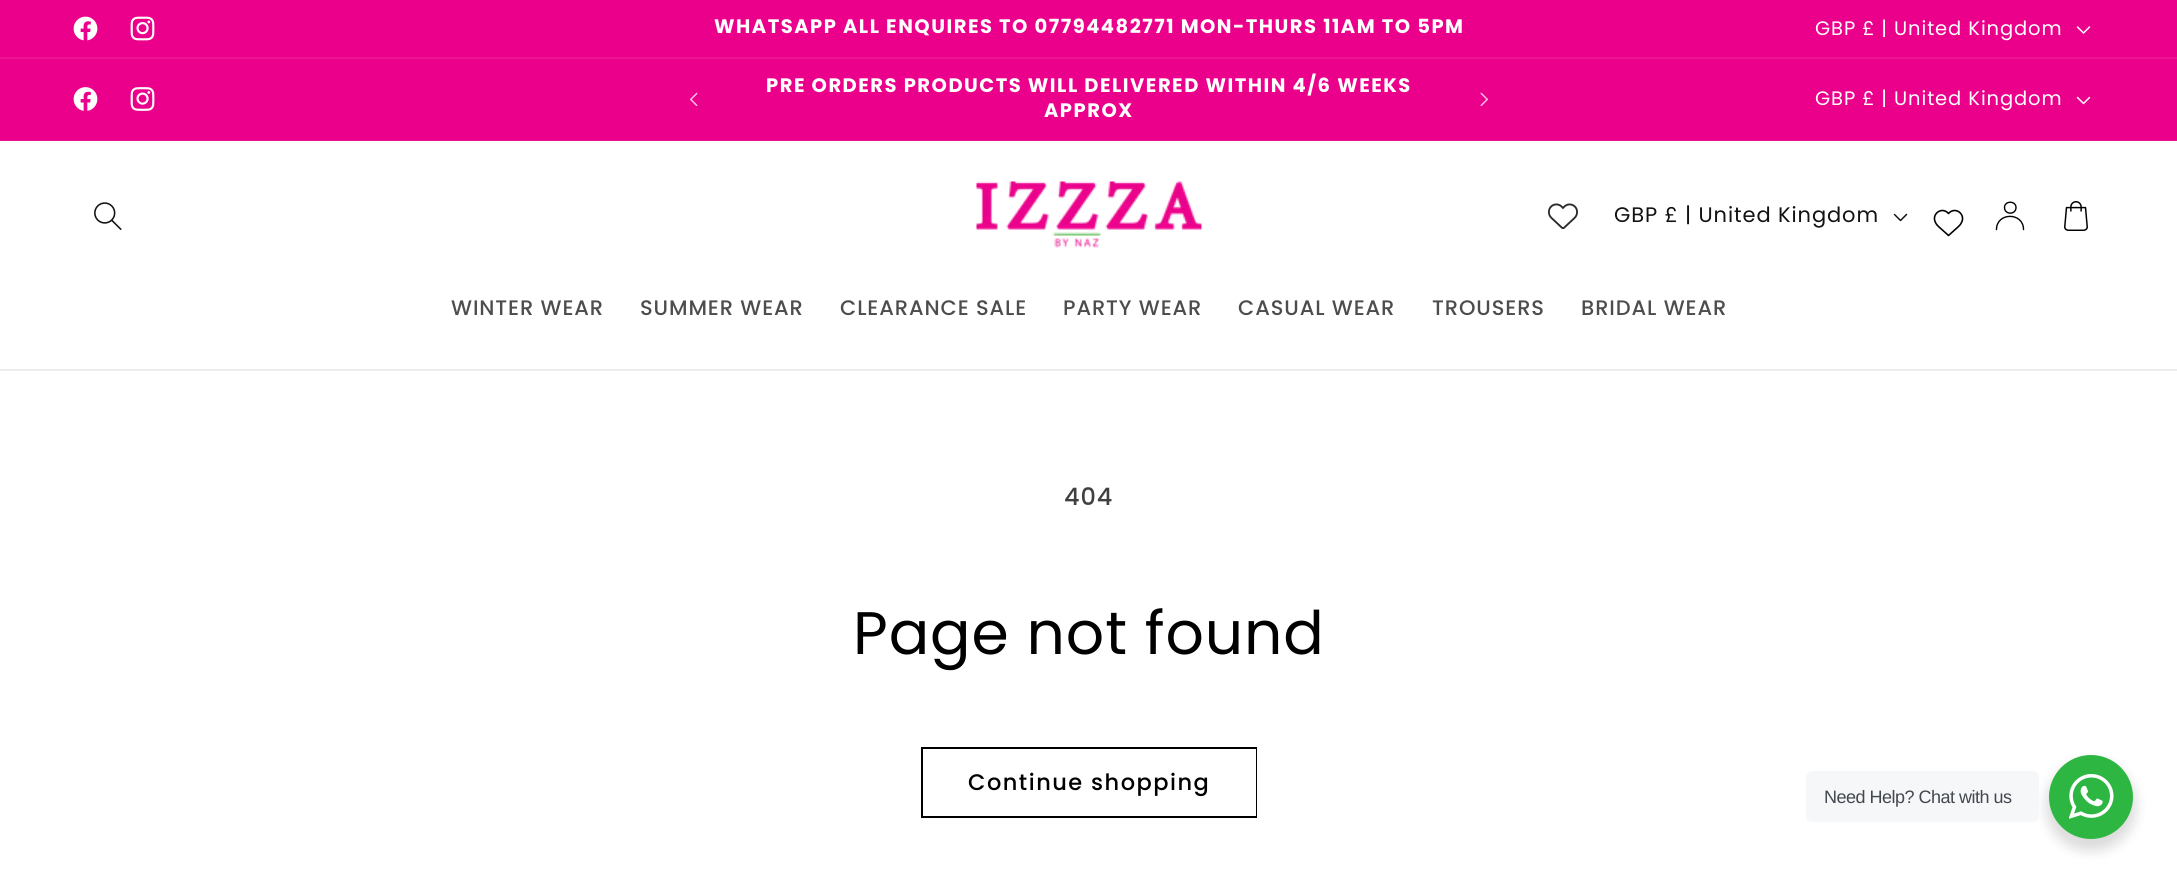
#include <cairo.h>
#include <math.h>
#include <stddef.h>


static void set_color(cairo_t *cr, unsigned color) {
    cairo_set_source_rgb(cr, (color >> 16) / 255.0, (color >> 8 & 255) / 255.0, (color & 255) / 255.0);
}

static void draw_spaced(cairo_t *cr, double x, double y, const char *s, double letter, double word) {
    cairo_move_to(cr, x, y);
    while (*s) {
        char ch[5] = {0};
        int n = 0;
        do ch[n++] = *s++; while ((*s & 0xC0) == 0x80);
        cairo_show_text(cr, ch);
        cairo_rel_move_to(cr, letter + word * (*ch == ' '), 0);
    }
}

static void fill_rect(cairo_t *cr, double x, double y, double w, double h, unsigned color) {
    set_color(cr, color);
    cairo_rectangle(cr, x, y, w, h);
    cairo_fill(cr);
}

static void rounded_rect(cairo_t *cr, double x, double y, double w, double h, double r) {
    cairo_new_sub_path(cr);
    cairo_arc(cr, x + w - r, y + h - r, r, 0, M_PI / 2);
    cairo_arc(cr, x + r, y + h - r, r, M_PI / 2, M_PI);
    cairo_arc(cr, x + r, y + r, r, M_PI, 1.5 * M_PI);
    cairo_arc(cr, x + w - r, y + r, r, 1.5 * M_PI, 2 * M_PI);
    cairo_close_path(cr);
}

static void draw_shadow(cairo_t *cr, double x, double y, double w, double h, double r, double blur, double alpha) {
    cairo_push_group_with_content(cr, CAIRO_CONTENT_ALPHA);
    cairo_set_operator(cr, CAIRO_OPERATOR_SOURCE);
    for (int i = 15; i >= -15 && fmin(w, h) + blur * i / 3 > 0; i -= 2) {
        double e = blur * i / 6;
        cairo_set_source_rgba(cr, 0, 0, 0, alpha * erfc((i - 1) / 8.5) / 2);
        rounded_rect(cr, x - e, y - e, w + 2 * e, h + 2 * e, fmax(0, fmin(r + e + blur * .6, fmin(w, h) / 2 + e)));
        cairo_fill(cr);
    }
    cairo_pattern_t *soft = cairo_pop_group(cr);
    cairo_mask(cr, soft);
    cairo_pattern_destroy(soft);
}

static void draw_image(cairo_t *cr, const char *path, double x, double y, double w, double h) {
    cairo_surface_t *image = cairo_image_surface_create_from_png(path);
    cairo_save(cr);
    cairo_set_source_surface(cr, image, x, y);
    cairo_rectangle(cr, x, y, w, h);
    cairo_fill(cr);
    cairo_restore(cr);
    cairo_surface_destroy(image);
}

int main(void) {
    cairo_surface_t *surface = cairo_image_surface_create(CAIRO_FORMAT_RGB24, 2177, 883);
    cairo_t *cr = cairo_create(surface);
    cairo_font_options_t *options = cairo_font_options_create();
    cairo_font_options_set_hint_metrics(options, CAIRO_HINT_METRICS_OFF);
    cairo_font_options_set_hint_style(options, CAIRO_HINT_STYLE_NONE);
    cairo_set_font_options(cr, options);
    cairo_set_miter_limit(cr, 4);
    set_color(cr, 0xFFFFFF);
    cairo_paint(cr);
    fill_rect(cr, 0, 0, 2177, 57, 0xEB008B);
    fill_rect(cr, 0, 57, 2177, 2, 0xED1494);
    draw_image(cr, "assets/img1.png", 73, 16, 25, 25);
    draw_image(cr, "assets/img2.png", 130, 16, 25, 25);
    cairo_select_font_face(cr, "Poppins", CAIRO_FONT_SLANT_NORMAL, CAIRO_FONT_WEIGHT_BOLD);
    cairo_set_font_size(cr, 19.5);
    set_color(cr, 0xFFFFFF);
    draw_spaced(cr, 714, 33, "WHATSAPP ALL ENQUIRES TO 07794482771 MON-THURS 11AM TO 5PM", 1.5, 0);
    cairo_select_font_face(cr, "Poppins", CAIRO_FONT_SLANT_NORMAL, CAIRO_FONT_WEIGHT_NORMAL);
    draw_spaced(cr, 1815, 35, "GBP £ | United Kingdom", 0.9, 0);
    draw_image(cr, "assets/img3.png", 2076, 26, 15, 8);
    fill_rect(cr, 0, 59, 2177, 81, 0xEB008B);
    fill_rect(cr, 0, 140, 2177, 1, 0xED1494);
    draw_image(cr, "assets/img4.png", 73, 87, 25, 24);
    draw_image(cr, "assets/img5.png", 130, 87, 25, 24);
    draw_image(cr, "assets/img6.png", 690, 92, 8, 15);
    cairo_select_font_face(cr, "Poppins", CAIRO_FONT_SLANT_NORMAL, CAIRO_FONT_WEIGHT_BOLD);
    set_color(cr, 0xFFFFFF);
    draw_spaced(cr, 766, 92, "PRE ORDERS PRODUCTS WILL DELIVERED WITHIN 4/6 WEEKS", 1.5, 0);
    draw_spaced(cr, 1044, 117, "APPROX", 1.5, 0);
    draw_image(cr, "assets/img7.png", 1480, 92, 8, 14);
    cairo_select_font_face(cr, "Poppins", CAIRO_FONT_SLANT_NORMAL, CAIRO_FONT_WEIGHT_NORMAL);
    draw_spaced(cr, 1815, 105, "GBP £ | United Kingdom", 0.9, 0);
    draw_image(cr, "assets/img8.png", 2076, 96, 15, 9);
    fill_rect(cr, 0, 369, 2177, 2, 0xECECEC);
    draw_image(cr, "assets/img9.png", 94, 202, 28, 28);
    draw_image(cr, "assets/img10.png", 976, 181, 226, 67);
    draw_image(cr, "assets/img11.png", 1548, 203, 30, 27);
    cairo_set_font_size(cr, 21);
    set_color(cr, 0x121212);
    draw_spaced(cr, 1614, 222, "GBP £ | United Kingdom", 0.9, 0);
    draw_image(cr, "assets/img12.png", 1893, 213, 15, 9);
    cairo_new_path(cr);
    cairo_move_to(cr, 1948.5, 213.5);
    cairo_curve_to(cr, 1942, 206, 1931, 214, 1935.5, 222.5);
    cairo_curve_to(cr, 1937, 226, 1941, 228.5, 1943.5, 231);
    cairo_line_to(cr, 1948.5, 235.5);
    cairo_line_to(cr, 1953.5, 231);
    cairo_curve_to(cr, 1956, 228.5, 1960, 226, 1961.5, 222.5);
    cairo_curve_to(cr, 1966, 214, 1955, 206, 1948.5, 213.5);
    cairo_close_path(cr);
    set_color(cr, 0x000000);
    cairo_set_line_width(cr, 1.6);
    cairo_set_line_cap(cr, CAIRO_LINE_CAP_ROUND);
    cairo_set_line_join(cr, CAIRO_LINE_JOIN_ROUND);
    cairo_stroke(cr);
    cairo_new_path(cr);
    cairo_move_to(cr, 2016, 207.5);
    cairo_curve_to(cr, 2016, 215, 2004.5, 215, 2004.5, 207.5);
    cairo_curve_to(cr, 2004.5, 200.5, 2016, 200.5, 2016, 207.5);
    cairo_close_path(cr);
    cairo_move_to(cr, 2023.5, 229.5);
    cairo_curve_to(cr, 2023.5, 212, 1996.5, 212, 1996.5, 229.5);
    cairo_set_line_width(cr, 1.4);
    cairo_stroke(cr);
    draw_image(cr, "assets/img13.png", 2064, 201, 24, 30);
    cairo_select_font_face(cr, "Poppins Medium", CAIRO_FONT_SLANT_NORMAL, CAIRO_FONT_WEIGHT_NORMAL);
    set_color(cr, 0x4D4D4D);
    draw_spaced(cr, 451, 315, "WINTER WEAR", 0.9, 0);
    draw_spaced(cr, 640, 315, "SUMMER WEAR", 0.9, 0);
    draw_spaced(cr, 840, 315, "CLEARANCE SALE", 0.9, 0);
    draw_spaced(cr, 1063, 315, "PARTY WEAR", 0.9, 0);
    draw_spaced(cr, 1238, 315, "CASUAL WEAR", 0.9, 0);
    draw_spaced(cr, 1432, 315, "TROUSERS", 0.9, 0);
    draw_spaced(cr, 1581, 315, "BRIDAL WEAR", 0.9, 0);
    cairo_set_font_size(cr, 24);
    set_color(cr, 0x404040);
    draw_spaced(cr, 1064, 505, "404", 0.9, 0);
    cairo_select_font_face(cr, "Poppins", CAIRO_FONT_SLANT_NORMAL, CAIRO_FONT_WEIGHT_NORMAL);
    cairo_set_font_size(cr, 60);
    set_color(cr, 0x000000);
    draw_spaced(cr, 853, 654, "Page not found", 0.9, 0);
    cairo_rectangle(cr, 922, 748, 334, 69);
    cairo_set_line_width(cr, 2);
    cairo_set_line_cap(cr, CAIRO_LINE_CAP_BUTT);
    cairo_set_line_join(cr, CAIRO_LINE_JOIN_MITER);
    cairo_stroke(cr);
    cairo_rectangle(cr, 924, 750, 331, 65);
    set_color(cr, 0xFFFFFF);
    cairo_stroke(cr);
    cairo_select_font_face(cr, "Poppins Medium", CAIRO_FONT_SLANT_NORMAL, CAIRO_FONT_WEIGHT_NORMAL);
    cairo_set_font_size(cr, 22.5);
    set_color(cr, 0x000000);
    draw_spaced(cr, 968, 790, "Continue shopping", 1.5, 0);
    set_color(cr, 0x000000);
    draw_shadow(cr, 2046, 761, 90, 90, 45, 6, 0.14);
    set_color(cr, 0xF5F7F9);
    rounded_rect(cr, 1806, 771, 233, 51, 6);
    cairo_fill(cr);
    cairo_select_font_face(cr, "Liberation Sans", CAIRO_FONT_SLANT_NORMAL, CAIRO_FONT_WEIGHT_NORMAL);
    cairo_set_font_size(cr, 18);
    set_color(cr, 0x43474E);
    draw_spaced(cr, 1824, 803, "Need Help? Chat with us", -0.5, 0);
    set_color(cr, 0x2DB742);
    cairo_new_path(cr);
    cairo_arc(cr, 2091, 797, 42, 0, 2 * M_PI);
    cairo_fill(cr);
    draw_image(cr, "assets/img14.png", 2069, 774, 45, 45);
    cairo_surface_write_to_png(surface, "output.png");
    cairo_font_options_destroy(options);
    cairo_destroy(cr);
    cairo_surface_destroy(surface);
    return 0;
}
